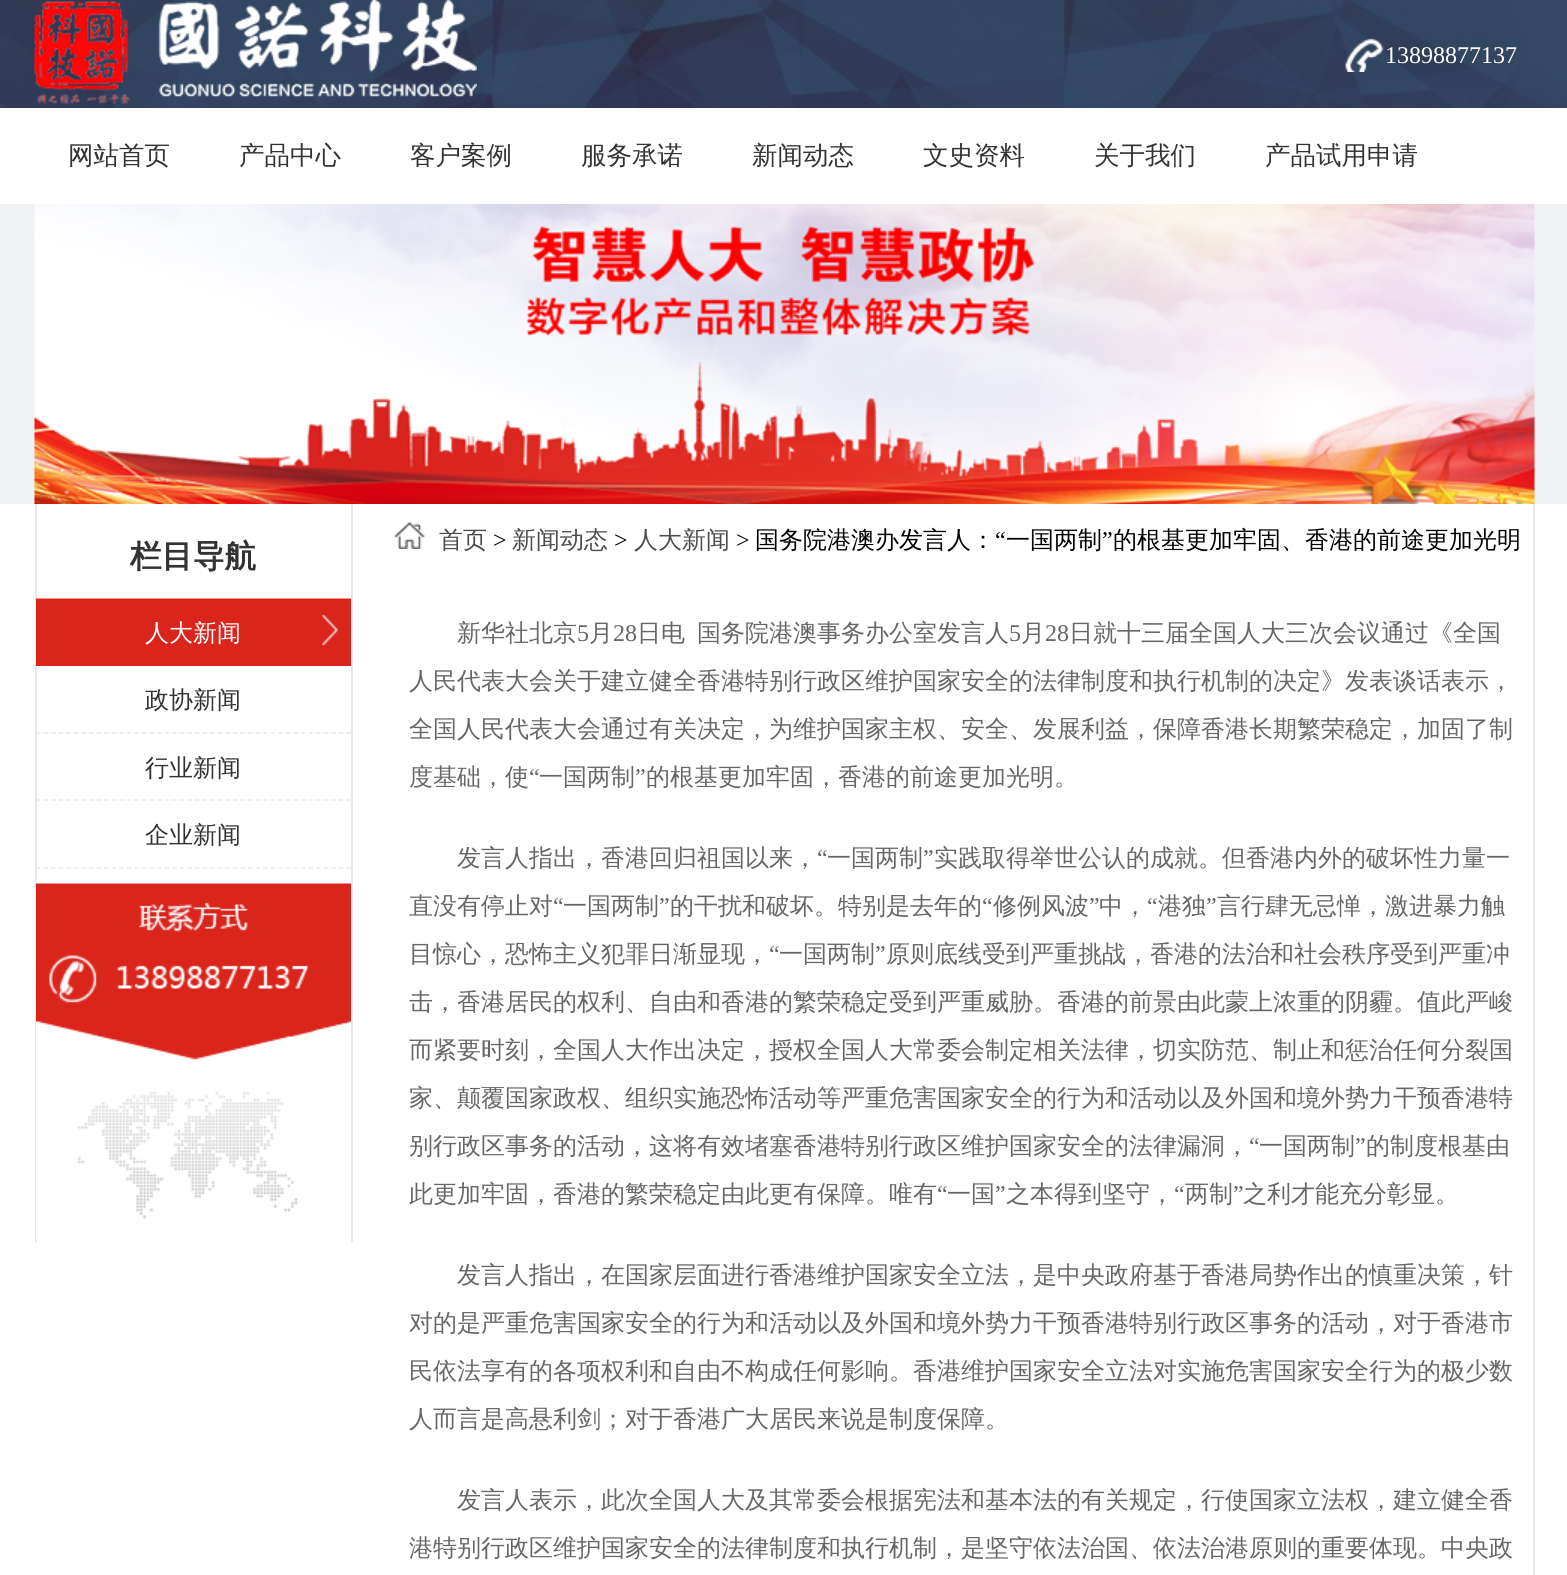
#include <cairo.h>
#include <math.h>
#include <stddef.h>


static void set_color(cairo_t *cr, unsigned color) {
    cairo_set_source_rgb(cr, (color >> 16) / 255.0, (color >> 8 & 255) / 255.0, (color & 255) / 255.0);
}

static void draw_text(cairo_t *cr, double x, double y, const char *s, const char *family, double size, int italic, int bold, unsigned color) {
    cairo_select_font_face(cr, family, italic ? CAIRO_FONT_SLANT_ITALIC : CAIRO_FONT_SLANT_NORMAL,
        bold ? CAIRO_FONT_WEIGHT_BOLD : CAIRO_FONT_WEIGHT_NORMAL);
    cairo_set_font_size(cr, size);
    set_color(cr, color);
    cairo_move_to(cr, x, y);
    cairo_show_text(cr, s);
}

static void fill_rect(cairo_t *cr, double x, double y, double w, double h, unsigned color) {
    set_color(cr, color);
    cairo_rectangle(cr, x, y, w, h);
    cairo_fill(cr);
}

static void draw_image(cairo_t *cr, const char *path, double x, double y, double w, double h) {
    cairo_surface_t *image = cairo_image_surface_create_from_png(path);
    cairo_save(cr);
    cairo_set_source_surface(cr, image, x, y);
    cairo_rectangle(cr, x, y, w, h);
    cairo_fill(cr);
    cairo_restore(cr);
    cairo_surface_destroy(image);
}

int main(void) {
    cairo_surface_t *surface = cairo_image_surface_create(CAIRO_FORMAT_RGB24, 1567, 1575);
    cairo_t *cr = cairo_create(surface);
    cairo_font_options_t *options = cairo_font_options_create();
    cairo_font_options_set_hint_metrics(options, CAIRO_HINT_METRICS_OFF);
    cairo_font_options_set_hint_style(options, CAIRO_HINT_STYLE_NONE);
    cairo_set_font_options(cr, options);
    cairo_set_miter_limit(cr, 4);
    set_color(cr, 0xFFFFFF);
    cairo_paint(cr);
    draw_image(cr, "assets/img1.png", 0, 0, 1567, 108);
    draw_image(cr, "assets/img2.png", 34, 0, 443, 104);
    draw_image(cr, "assets/img3.png", 1345, 38, 39, 34);
    draw_text(cr, 1385, 63, "13898877137", "Liberation Serif", 24, 0, 0, 0xFFFFFF);
    draw_text(cr, 68, 164, "网站首页", "WenQuanYi Zen Hei Medium", 25.5, 0, 0, 0x333333);
    draw_text(cr, 239, 164, "产品中心", "WenQuanYi Zen Hei Medium", 25.5, 0, 0, 0x333333);
    draw_text(cr, 410, 164, "客户案例", "WenQuanYi Zen Hei Medium", 25.5, 0, 0, 0x333333);
    draw_text(cr, 581, 164, "服务承诺", "WenQuanYi Zen Hei Medium", 25.5, 0, 0, 0x333333);
    draw_text(cr, 752, 164, "新闻动态", "WenQuanYi Zen Hei Medium", 25.5, 0, 0, 0x333333);
    draw_text(cr, 923, 164, "文史资料", "WenQuanYi Zen Hei Medium", 25.5, 0, 0, 0x333333);
    draw_text(cr, 1094, 164, "关于我们", "WenQuanYi Zen Hei Medium", 25.5, 0, 0, 0x333333);
    draw_text(cr, 1265, 164, "产品试用申请", "WenQuanYi Zen Hei Medium", 25.5, 0, 0, 0x333333);
    fill_rect(cr, 0, 204, 1567, 300, 0xF0F1F3);
    draw_image(cr, "assets/img4.png", 34, 204, 1501, 300);
    fill_rect(cr, 351, 504, 2, 738, 0xE9E9E9);
    fill_rect(cr, 35, 504, 2, 738, 0xE9E9E9);
    draw_text(cr, 130, 567, "栏目导航", "WenQuanYi Zen Hei", 31.5, 0, 1, 0x333333);
    draw_image(cr, "assets/img5.png", 36, 598, 315, 68);
    draw_text(cr, 145, 641, "人大新闻", "WenQuanYi Zen Hei Medium", 24, 0, 0, 0xFFFFFF);
    cairo_new_path(cr);
    cairo_move_to(cr, 36, 733);
    cairo_line_to(cr, 351, 733);
    set_color(cr, 0xE9E9E9);
    cairo_set_line_width(cr, 1.5);
    cairo_set_dash(cr, (double[]){4.5, 3.07}, 2, 0);
    cairo_stroke(cr);
    draw_text(cr, 145, 708, "政协新闻", "WenQuanYi Zen Hei Medium", 24, 0, 0, 0x333333);
    cairo_new_path(cr);
    cairo_move_to(cr, 36, 800);
    cairo_line_to(cr, 351, 800);
    set_color(cr, 0xE9E9E9);
    cairo_stroke(cr);
    draw_text(cr, 145, 776, "行业新闻", "WenQuanYi Zen Hei Medium", 24, 0, 0, 0x333333);
    cairo_new_path(cr);
    cairo_move_to(cr, 36, 868);
    cairo_line_to(cr, 351, 868);
    set_color(cr, 0xE9E9E9);
    cairo_stroke(cr);
    draw_text(cr, 145, 843, "企业新闻", "WenQuanYi Zen Hei Medium", 24, 0, 0, 0x333333);
    draw_image(cr, "assets/img6.png", 36, 883, 315, 358);
    fill_rect(cr, 1533, 504, 2, 1071, 0xE9E9E9);
    draw_image(cr, "assets/img7.png", 394, 522, 31, 27);
    draw_text(cr, 439, 548, "首页", "WenQuanYi Zen Hei Medium", 24, 0, 0, 0x4C4C4C);
    draw_text(cr, 493, 548, ">", "Liberation Serif", 24, 0, 0, 0x000000);
    draw_text(cr, 512, 548, "新闻动态", "WenQuanYi Zen Hei Medium", 24, 0, 0, 0x4C4C4C);
    draw_text(cr, 614, 548, ">", "Liberation Serif", 24, 0, 0, 0x000000);
    draw_text(cr, 634, 548, "人大新闻", "WenQuanYi Zen Hei Medium", 24, 0, 0, 0x4C4C4C);
    draw_text(cr, 736, 548, ">", "Liberation Serif", 24, 0, 0, 0x000000);
    draw_text(cr, 755, 548, "国务院港澳办发言人：", "WenQuanYi Zen Hei Medium", 24, 0, 0, 0x000000);
    draw_text(cr, 995, 548, "“", "Liberation Serif", 24, 0, 0, 0x000000);
    draw_text(cr, 1006, 548, "一国两制", "WenQuanYi Zen Hei Medium", 24, 0, 0, 0x000000);
    draw_text(cr, 1102, 548, "”", "Liberation Serif", 24, 0, 0, 0x000000);
    draw_text(cr, 1113, 548, "的根基更加牢固、香港的前途更加光明", "WenQuanYi Zen Hei Medium", 24, 0, 0, 0x000000);
    draw_text(cr, 457, 641, "新华社北京", "WenQuanYi Zen Hei Medium", 24, 0, 0, 0x666666);
    draw_text(cr, 577, 641, "5", "Liberation Serif", 24, 0, 0, 0x666666);
    draw_text(cr, 589, 641, "月", "WenQuanYi Zen Hei Medium", 24, 0, 0, 0x666666);
    draw_text(cr, 613, 641, "28", "Liberation Serif", 24, 0, 0, 0x666666);
    draw_text(cr, 637, 641, "日电", "WenQuanYi Zen Hei Medium", 24, 0, 0, 0x666666);
    draw_text(cr, 697, 641, "国务院港澳事务办公室发言人", "WenQuanYi Zen Hei Medium", 24, 0, 0, 0x666666);
    draw_text(cr, 1009, 641, "5", "Liberation Serif", 24, 0, 0, 0x666666);
    draw_text(cr, 1021, 641, "月", "WenQuanYi Zen Hei Medium", 24, 0, 0, 0x666666);
    draw_text(cr, 1045, 641, "28", "Liberation Serif", 24, 0, 0, 0x666666);
    draw_text(cr, 1069, 641, "日就十三届全国人大三次会议通过《全国", "WenQuanYi Zen Hei Medium", 24, 0, 0, 0x666666);
    draw_text(cr, 409, 689, "人民代表大会关于建立健全香港特别行政区维护国家安全的法律制度和执行机制的决定》发表谈话表示，", "WenQuanYi Zen Hei Medium", 24, 0, 0, 0x666666);
    draw_text(cr, 409, 737, "全国人民代表大会通过有关决定，为维护国家主权、安全、发展利益，保障香港长期繁荣稳定，加固了制", "WenQuanYi Zen Hei Medium", 24, 0, 0, 0x666666);
    draw_text(cr, 409, 785, "度基础，使", "WenQuanYi Zen Hei Medium", 24, 0, 0, 0x666666);
    draw_text(cr, 529, 785, "“", "Liberation Serif", 24, 0, 0, 0x666666);
    draw_text(cr, 539, 785, "一国两制", "WenQuanYi Zen Hei Medium", 24, 0, 0, 0x666666);
    draw_text(cr, 635, 785, "”", "Liberation Serif", 24, 0, 0, 0x666666);
    draw_text(cr, 646, 785, "的根基更加牢固，香港的前途更加光明。", "WenQuanYi Zen Hei Medium", 24, 0, 0, 0x666666);
    draw_text(cr, 457, 866, "发言人指出，香港回归祖国以来，", "WenQuanYi Zen Hei Medium", 24, 0, 0, 0x666666);
    draw_text(cr, 817, 866, "“", "Liberation Serif", 24, 0, 0, 0x666666);
    draw_text(cr, 827, 866, "一国两制", "WenQuanYi Zen Hei Medium", 24, 0, 0, 0x666666);
    draw_text(cr, 923, 866, "”", "Liberation Serif", 24, 0, 0, 0x666666);
    draw_text(cr, 934, 866, "实践取得举世公认的成就。但香港内外的破坏性力量一", "WenQuanYi Zen Hei Medium", 24, 0, 0, 0x666666);
    draw_text(cr, 409, 914, "直没有停止对", "WenQuanYi Zen Hei Medium", 24, 0, 0, 0x666666);
    draw_text(cr, 553, 914, "“", "Liberation Serif", 24, 0, 0, 0x666666);
    draw_text(cr, 563, 914, "一国两制", "WenQuanYi Zen Hei Medium", 24, 0, 0, 0x666666);
    draw_text(cr, 659, 914, "”", "Liberation Serif", 24, 0, 0, 0x666666);
    draw_text(cr, 670, 914, "的干扰和破坏。特别是去年的", "WenQuanYi Zen Hei Medium", 24, 0, 0, 0x666666);
    draw_text(cr, 982, 914, "“", "Liberation Serif", 24, 0, 0, 0x666666);
    draw_text(cr, 993, 914, "修例风波", "WenQuanYi Zen Hei Medium", 24, 0, 0, 0x666666);
    draw_text(cr, 1089, 914, "”", "Liberation Serif", 24, 0, 0, 0x666666);
    draw_text(cr, 1099, 914, "中，", "WenQuanYi Zen Hei Medium", 24, 0, 0, 0x666666);
    draw_text(cr, 1147, 914, "“", "Liberation Serif", 24, 0, 0, 0x666666);
    draw_text(cr, 1158, 914, "港独", "WenQuanYi Zen Hei Medium", 24, 0, 0, 0x666666);
    draw_text(cr, 1206, 914, "”", "Liberation Serif", 24, 0, 0, 0x666666);
    draw_text(cr, 1217, 914, "言行肆无忌惮，激进暴力触", "WenQuanYi Zen Hei Medium", 24, 0, 0, 0x666666);
    draw_text(cr, 409, 962, "目惊心，恐怖主义犯罪日渐显现，", "WenQuanYi Zen Hei Medium", 24, 0, 0, 0x666666);
    draw_text(cr, 769, 962, "“", "Liberation Serif", 24, 0, 0, 0x666666);
    draw_text(cr, 779, 962, "一国两制", "WenQuanYi Zen Hei Medium", 24, 0, 0, 0x666666);
    draw_text(cr, 875, 962, "”", "Liberation Serif", 24, 0, 0, 0x666666);
    draw_text(cr, 886, 962, "原则底线受到严重挑战，香港的法治和社会秩序受到严重冲", "WenQuanYi Zen Hei Medium", 24, 0, 0, 0x666666);
    draw_text(cr, 409, 1010, "击，香港居民的权利、自由和香港的繁荣稳定受到严重威胁。香港的前景由此蒙上浓重的阴霾。值此严峻", "WenQuanYi Zen Hei Medium", 24, 0, 0, 0x666666);
    draw_text(cr, 409, 1058, "而紧要时刻，全国人大作出决定，授权全国人大常委会制定相关法律，切实防范、制止和惩治任何分裂国", "WenQuanYi Zen Hei Medium", 24, 0, 0, 0x666666);
    draw_text(cr, 409, 1106, "家、颠覆国家政权、组织实施恐怖活动等严重危害国家安全的行为和活动以及外国和境外势力干预香港特", "WenQuanYi Zen Hei Medium", 24, 0, 0, 0x666666);
    draw_text(cr, 409, 1154, "别行政区事务的活动，这将有效堵塞香港特别行政区维护国家安全的法律漏洞，", "WenQuanYi Zen Hei Medium", 24, 0, 0, 0x666666);
    draw_text(cr, 1249, 1154, "“", "Liberation Serif", 24, 0, 0, 0x666666);
    draw_text(cr, 1259, 1154, "一国两制", "WenQuanYi Zen Hei Medium", 24, 0, 0, 0x666666);
    draw_text(cr, 1355, 1154, "”", "Liberation Serif", 24, 0, 0, 0x666666);
    draw_text(cr, 1366, 1154, "的制度根基由", "WenQuanYi Zen Hei Medium", 24, 0, 0, 0x666666);
    draw_text(cr, 409, 1202, "此更加牢固，香港的繁荣稳定由此更有保障。唯有", "WenQuanYi Zen Hei Medium", 24, 0, 0, 0x666666);
    draw_text(cr, 937, 1202, "“", "Liberation Serif", 24, 0, 0, 0x666666);
    draw_text(cr, 947, 1202, "一国", "WenQuanYi Zen Hei Medium", 24, 0, 0, 0x666666);
    draw_text(cr, 995, 1202, "”", "Liberation Serif", 24, 0, 0, 0x666666);
    draw_text(cr, 1006, 1202, "之本得到坚守，", "WenQuanYi Zen Hei Medium", 24, 0, 0, 0x666666);
    draw_text(cr, 1174, 1202, "“", "Liberation Serif", 24, 0, 0, 0x666666);
    draw_text(cr, 1185, 1202, "两制", "WenQuanYi Zen Hei Medium", 24, 0, 0, 0x666666);
    draw_text(cr, 1233, 1202, "”", "Liberation Serif", 24, 0, 0, 0x666666);
    draw_text(cr, 1243, 1202, "之利才能充分彰显。", "WenQuanYi Zen Hei Medium", 24, 0, 0, 0x666666);
    draw_text(cr, 457, 1283, "发言人指出，在国家层面进行香港维护国家安全立法，是中央政府基于香港局势作出的慎重决策，针", "WenQuanYi Zen Hei Medium", 24, 0, 0, 0x666666);
    draw_text(cr, 409, 1331, "对的是严重危害国家安全的行为和活动以及外国和境外势力干预香港特别行政区事务的活动，对于香港市", "WenQuanYi Zen Hei Medium", 24, 0, 0, 0x666666);
    draw_text(cr, 409, 1379, "民依法享有的各项权利和自由不构成任何影响。香港维护国家安全立法对实施危害国家安全行为的极少数", "WenQuanYi Zen Hei Medium", 24, 0, 0, 0x666666);
    draw_text(cr, 409, 1427, "人而言是高悬利剑；对于香港广大居民来说是制度保障。", "WenQuanYi Zen Hei Medium", 24, 0, 0, 0x666666);
    draw_text(cr, 457, 1508, "发言人表示，此次全国人大及其常委会根据宪法和基本法的有关规定，行使国家立法权，建立健全香", "WenQuanYi Zen Hei Medium", 24, 0, 0, 0x666666);
    draw_text(cr, 409, 1556, "港特别行政区维护国家安全的法律制度和执行机制，是坚守依法治国、依法治港原则的重要体现。中央政", "WenQuanYi Zen Hei Medium", 24, 0, 0, 0x666666);
    cairo_surface_write_to_png(surface, "output.png");
    cairo_font_options_destroy(options);
    cairo_destroy(cr);
    cairo_surface_destroy(surface);
    return 0;
}
